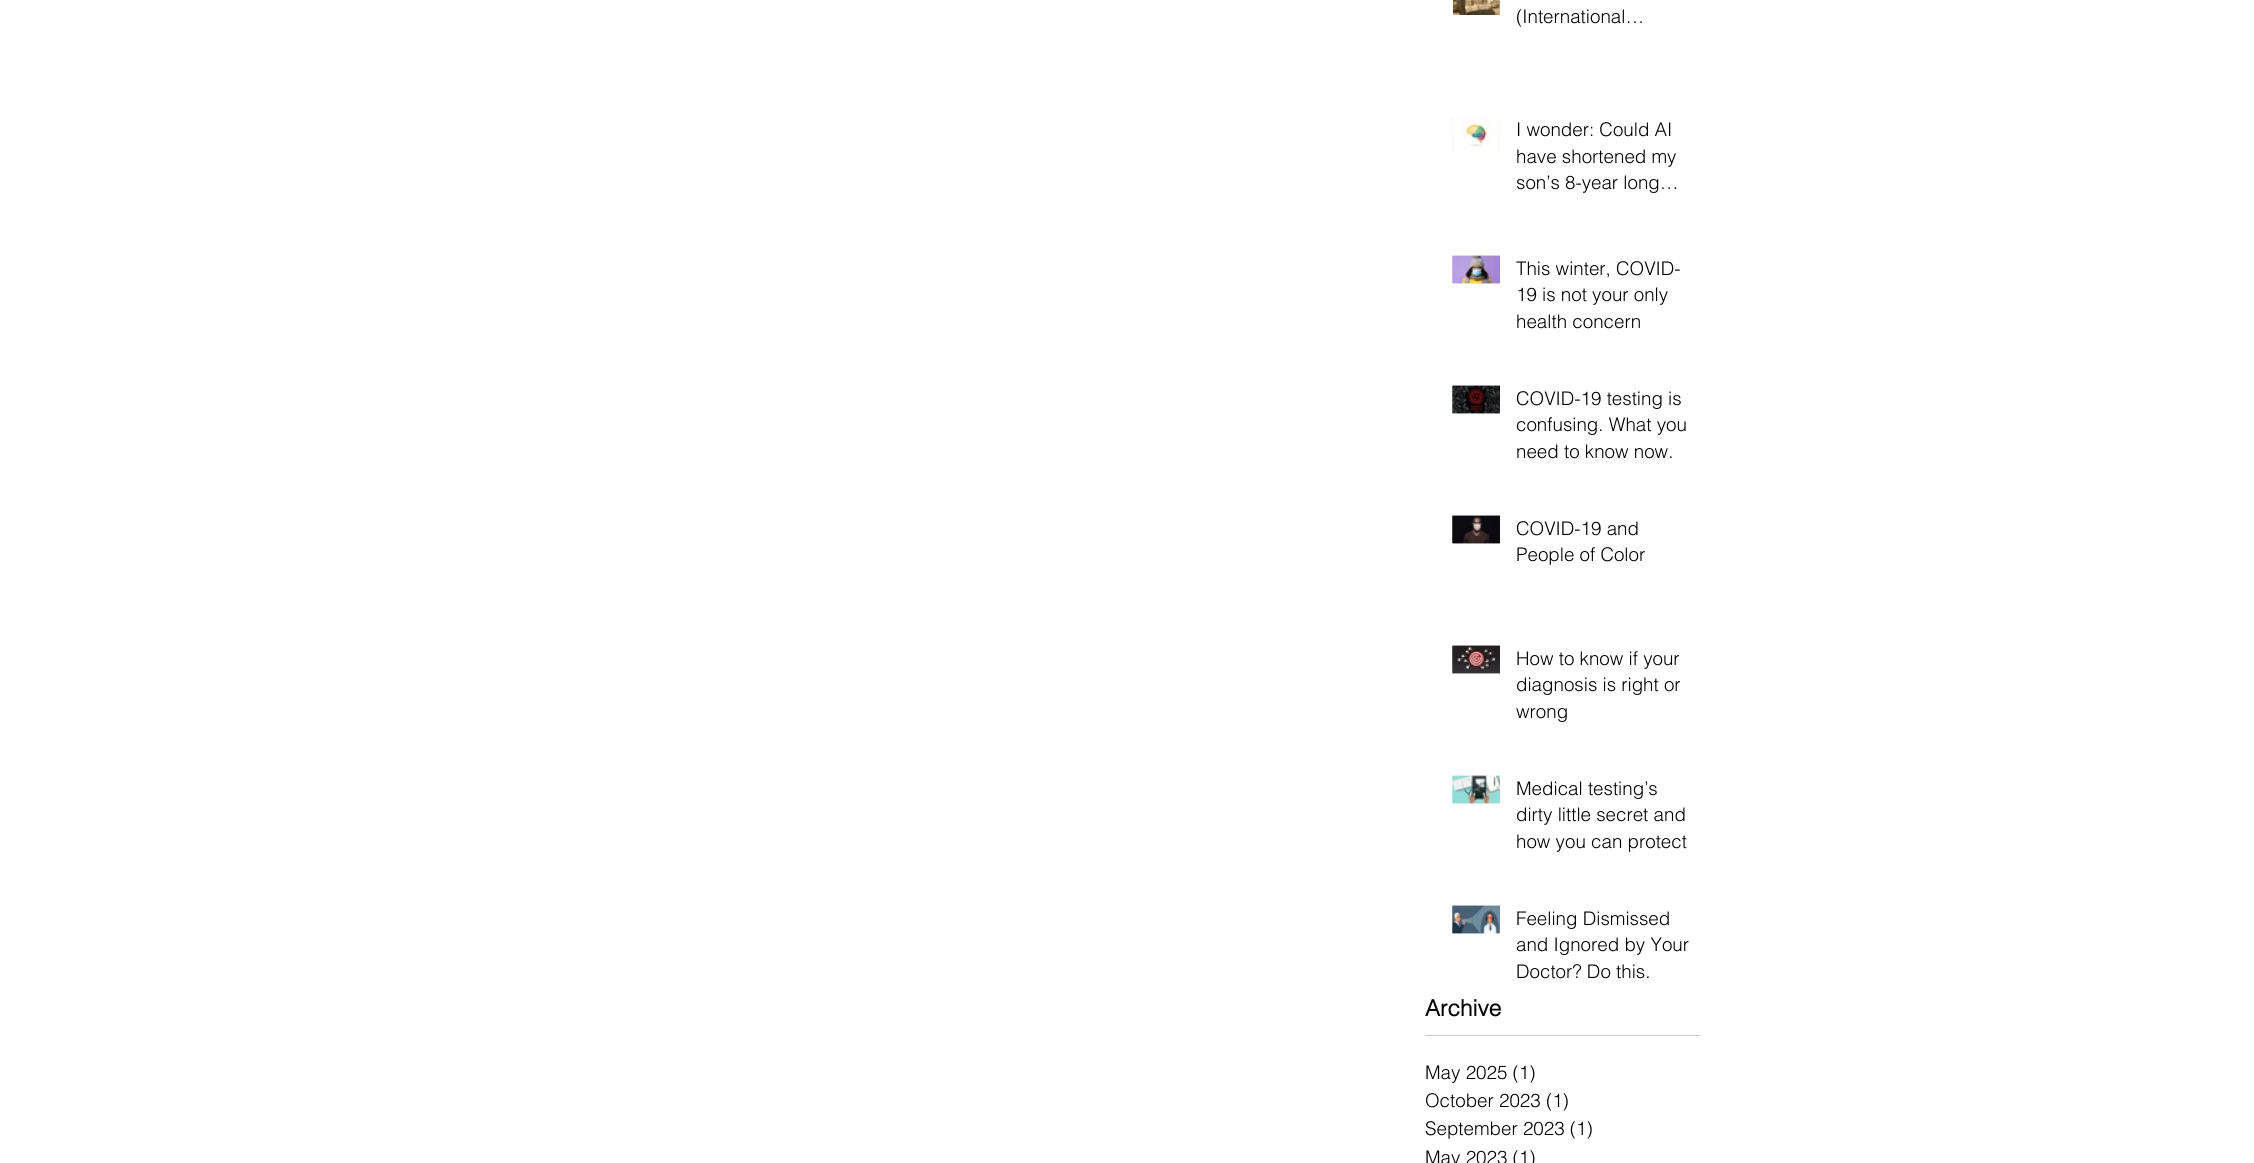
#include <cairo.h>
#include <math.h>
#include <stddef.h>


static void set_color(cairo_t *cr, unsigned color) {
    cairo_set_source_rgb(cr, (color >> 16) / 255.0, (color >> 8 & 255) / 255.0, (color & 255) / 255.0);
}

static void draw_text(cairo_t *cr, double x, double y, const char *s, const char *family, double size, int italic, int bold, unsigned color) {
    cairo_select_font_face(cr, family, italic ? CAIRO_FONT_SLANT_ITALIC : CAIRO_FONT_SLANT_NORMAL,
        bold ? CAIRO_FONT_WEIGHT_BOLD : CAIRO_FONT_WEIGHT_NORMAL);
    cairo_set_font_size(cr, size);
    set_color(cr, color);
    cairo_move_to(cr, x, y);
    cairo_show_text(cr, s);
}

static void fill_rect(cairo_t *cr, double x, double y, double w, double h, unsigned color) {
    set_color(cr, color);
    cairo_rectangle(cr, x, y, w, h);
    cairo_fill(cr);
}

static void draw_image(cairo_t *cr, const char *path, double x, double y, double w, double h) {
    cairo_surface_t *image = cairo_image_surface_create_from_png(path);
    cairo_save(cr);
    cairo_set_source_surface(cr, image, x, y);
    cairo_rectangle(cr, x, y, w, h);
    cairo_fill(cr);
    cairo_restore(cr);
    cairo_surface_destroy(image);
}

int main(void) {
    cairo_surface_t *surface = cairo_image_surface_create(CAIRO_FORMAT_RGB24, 2254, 1163);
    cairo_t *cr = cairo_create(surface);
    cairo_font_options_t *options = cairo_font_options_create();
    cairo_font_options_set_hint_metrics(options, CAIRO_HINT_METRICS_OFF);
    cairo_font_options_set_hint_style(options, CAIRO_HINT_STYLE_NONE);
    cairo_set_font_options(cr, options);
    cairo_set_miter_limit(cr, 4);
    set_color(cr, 0xFFFFFF);
    cairo_paint(cr);
    draw_image(cr, "assets/img1.png", 1453, 0, 47, 15);
    draw_text(cr, 1516, 23, "(International…", "helvetica Light", 18.75, 0, 0, 0x000000);
    draw_image(cr, "assets/img2.png", 1452, 117, 48, 37);
    draw_image(cr, "assets/img3.png", 1453, 117, 47, 36);
    draw_text(cr, 1516, 136, "I wonder: Could AI", "helvetica Light", 18.75, 0, 0, 0x000000);
    draw_text(cr, 1516, 163, "have shortened my", "helvetica Light", 18.75, 0, 0, 0x000000);
    draw_text(cr, 1516, 189, "son’s 8-year long…", "helvetica Light", 18.75, 0, 0, 0x000000);
    draw_image(cr, "assets/img4.png", 1452, 255, 48, 29);
    draw_image(cr, "assets/img5.png", 1452, 255, 48, 29);
    draw_text(cr, 1516, 275, "This winter, COVID-", "helvetica Light", 18.75, 0, 0, 0x000000);
    draw_text(cr, 1516, 301, "19 is not your only", "helvetica Light", 18.75, 0, 0, 0x000000);
    draw_text(cr, 1516, 328, "health concern", "helvetica Light", 18.75, 0, 0, 0x000000);
    draw_image(cr, "assets/img6.png", 1452, 385, 48, 29);
    draw_image(cr, "assets/img7.png", 1452, 385, 48, 29);
    draw_text(cr, 1516, 405, "COVID-19 testing is", "helvetica Light", 18.75, 0, 0, 0x000000);
    draw_text(cr, 1516, 431, "confusing. What you", "helvetica Light", 18.75, 0, 0, 0x000000);
    draw_text(cr, 1516, 458, "need to know now.", "helvetica Light", 18.75, 0, 0, 0x000000);
    draw_image(cr, "assets/img8.png", 1452, 515, 48, 29);
    draw_image(cr, "assets/img9.png", 1452, 515, 48, 29);
    draw_text(cr, 1516, 535, "COVID-19 and", "helvetica Light", 18.75, 0, 0, 0x000000);
    draw_text(cr, 1516, 561, "People of Color", "helvetica Light", 18.75, 0, 0, 0x000000);
    draw_image(cr, "assets/img10.png", 1452, 645, 48, 29);
    draw_image(cr, "assets/img11.png", 1452, 645, 48, 29);
    draw_text(cr, 1516, 665, "How to know if your", "helvetica Light", 18.75, 0, 0, 0x000000);
    draw_text(cr, 1516, 691, "diagnosis is right or", "helvetica Light", 18.75, 0, 0, 0x000000);
    draw_text(cr, 1516, 718, "wrong", "helvetica Light", 18.75, 0, 0, 0x000000);
    draw_image(cr, "assets/img12.png", 1452, 775, 48, 29);
    draw_image(cr, "assets/img13.png", 1452, 775, 48, 29);
    draw_text(cr, 1516, 795, "Medical testing’s", "helvetica Light", 18.75, 0, 0, 0x000000);
    draw_text(cr, 1516, 821, "dirty little secret and", "helvetica Light", 18.75, 0, 0, 0x000000);
    draw_text(cr, 1516, 848, "how you can protect", "helvetica Light", 18.75, 0, 0, 0x000000);
    draw_image(cr, "assets/img14.png", 1452, 905, 48, 29);
    draw_image(cr, "assets/img15.png", 1452, 905, 48, 29);
    draw_text(cr, 1516, 925, "Feeling Dismissed", "helvetica Light", 18.75, 0, 0, 0x000000);
    draw_text(cr, 1516, 951, "and Ignored by Your", "helvetica Light", 18.75, 0, 0, 0x000000);
    draw_text(cr, 1516, 978, "Doctor? Do this.", "helvetica Light", 18.75, 0, 0, 0x000000);
    draw_text(cr, 1425, 1016, "Archive", "helvetica", 22.5, 0, 1, 0x000000);
    fill_rect(cr, 1425, 1035, 275, 1, 0xC7C7C7);
    draw_text(cr, 1425, 1079, "May 2025 (1)", "helvetica Light", 18.75, 0, 0, 0x000000);
    draw_text(cr, 1425, 1107, "October 2023 (1)", "helvetica Light", 18.75, 0, 0, 0x000000);
    draw_text(cr, 1425, 1135, "September 2023 (1)", "helvetica Light", 18.75, 0, 0, 0x000000);
    draw_text(cr, 1425, 1164, "May 2023 (1)", "helvetica Light", 18.75, 0, 0, 0x000000);
    cairo_surface_write_to_png(surface, "output.png");
    cairo_font_options_destroy(options);
    cairo_destroy(cr);
    cairo_surface_destroy(surface);
    return 0;
}
